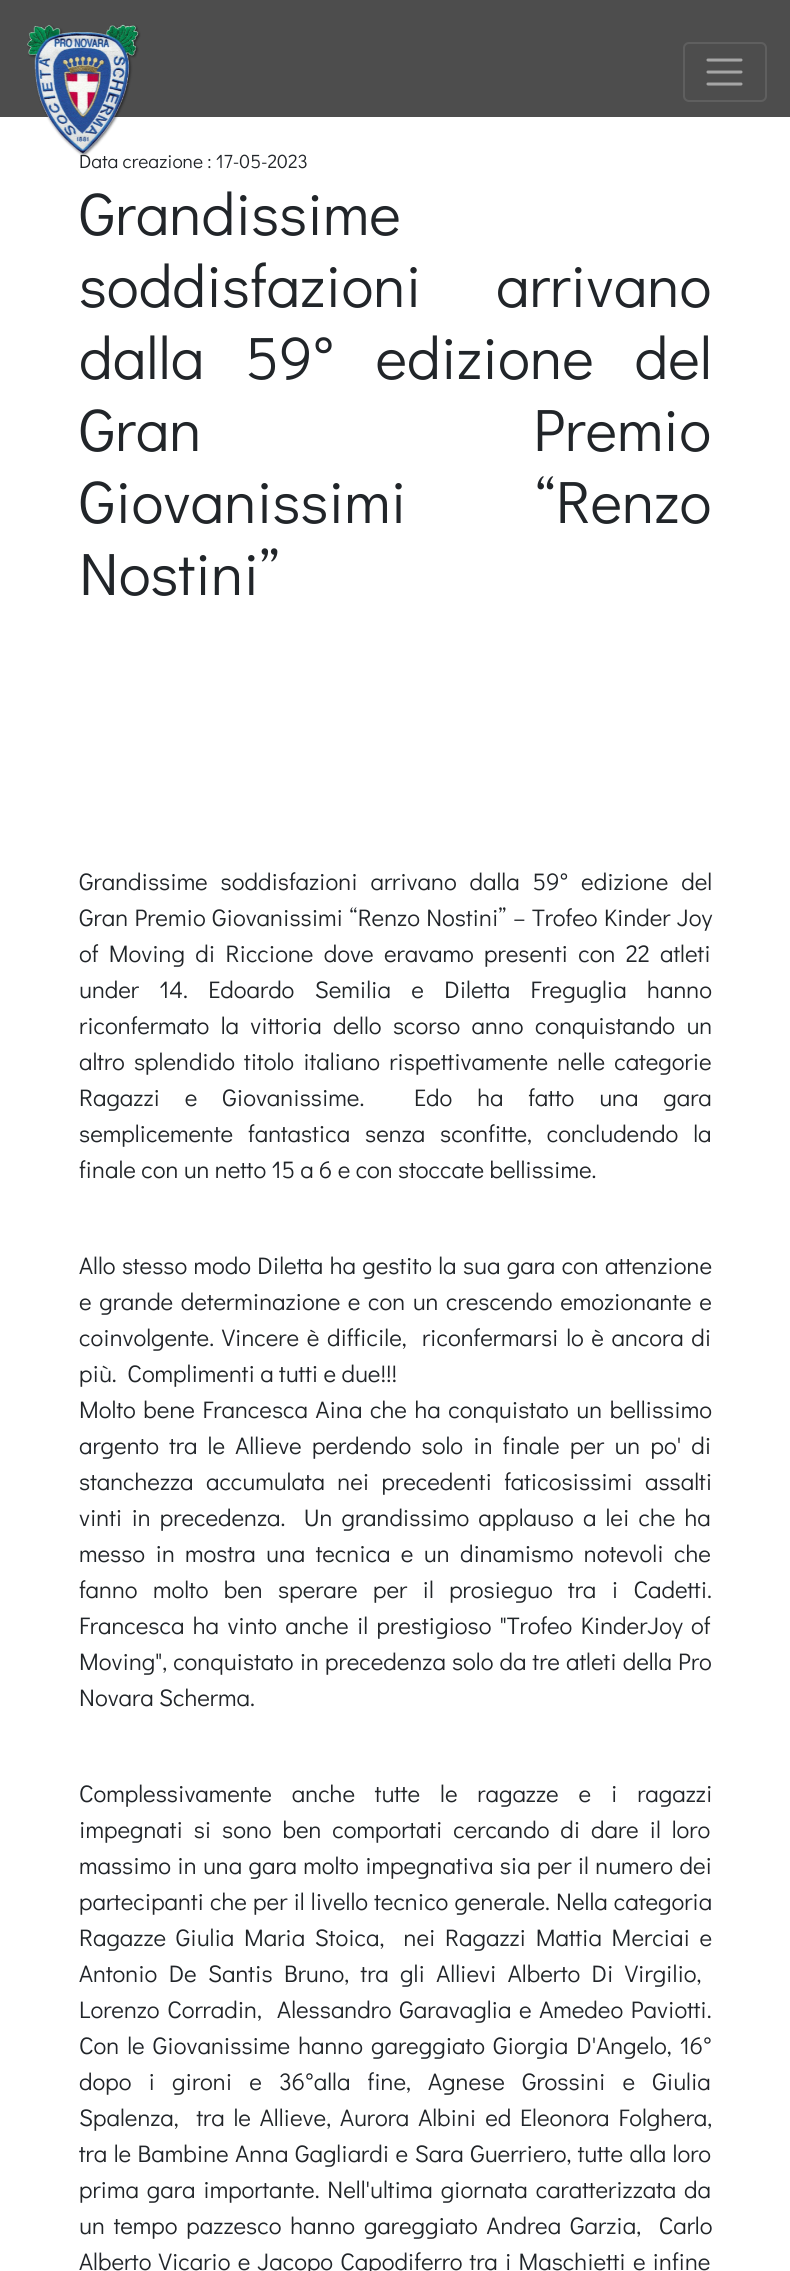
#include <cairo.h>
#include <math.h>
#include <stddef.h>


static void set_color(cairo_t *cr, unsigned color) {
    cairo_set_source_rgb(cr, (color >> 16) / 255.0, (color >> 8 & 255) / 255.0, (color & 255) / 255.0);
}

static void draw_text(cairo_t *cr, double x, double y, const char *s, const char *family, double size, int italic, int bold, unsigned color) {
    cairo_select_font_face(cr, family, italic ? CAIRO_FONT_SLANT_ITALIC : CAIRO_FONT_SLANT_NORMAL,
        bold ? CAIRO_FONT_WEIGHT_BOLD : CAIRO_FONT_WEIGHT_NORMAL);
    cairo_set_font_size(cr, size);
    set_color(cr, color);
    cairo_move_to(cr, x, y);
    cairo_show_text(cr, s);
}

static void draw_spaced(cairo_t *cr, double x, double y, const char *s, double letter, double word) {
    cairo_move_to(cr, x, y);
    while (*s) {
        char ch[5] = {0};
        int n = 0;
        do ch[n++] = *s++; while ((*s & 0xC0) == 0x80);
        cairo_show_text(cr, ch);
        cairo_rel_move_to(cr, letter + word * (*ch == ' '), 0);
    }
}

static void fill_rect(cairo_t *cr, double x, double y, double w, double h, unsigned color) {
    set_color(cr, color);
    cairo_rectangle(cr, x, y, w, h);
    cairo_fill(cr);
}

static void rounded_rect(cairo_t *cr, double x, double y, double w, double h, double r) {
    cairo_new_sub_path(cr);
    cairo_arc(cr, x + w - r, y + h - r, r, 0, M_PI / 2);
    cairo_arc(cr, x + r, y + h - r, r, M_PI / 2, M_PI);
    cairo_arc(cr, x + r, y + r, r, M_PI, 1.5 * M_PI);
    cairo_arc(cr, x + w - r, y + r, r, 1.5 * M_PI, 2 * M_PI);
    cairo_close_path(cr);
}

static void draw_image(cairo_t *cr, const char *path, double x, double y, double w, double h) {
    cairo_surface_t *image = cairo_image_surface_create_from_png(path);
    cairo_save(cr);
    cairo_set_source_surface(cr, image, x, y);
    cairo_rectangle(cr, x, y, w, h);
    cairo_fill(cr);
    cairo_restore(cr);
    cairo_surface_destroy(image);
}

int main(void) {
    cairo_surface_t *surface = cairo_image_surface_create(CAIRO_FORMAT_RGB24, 790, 2271);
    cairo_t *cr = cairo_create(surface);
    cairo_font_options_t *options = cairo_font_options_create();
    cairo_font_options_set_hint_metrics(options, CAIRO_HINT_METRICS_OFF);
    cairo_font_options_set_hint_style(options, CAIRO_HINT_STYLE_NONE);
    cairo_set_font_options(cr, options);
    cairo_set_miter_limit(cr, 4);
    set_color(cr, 0xFFFFFF);
    cairo_paint(cr);
    fill_rect(cr, 0, 0, 790, 117, 0x4D4D4D);
    draw_text(cr, 79, 168, "Data creazione : 17-05-2023", "Didact Gothic", 19.25, 0, 0, 0x212529);
    draw_image(cr, "assets/img1.png", 27, 24, 114, 133);
    rounded_rect(cr, 684, 43, 82, 58, 5);
    set_color(cr, 0x5F5F5F);
    cairo_stroke(cr);
    cairo_new_path(cr);
    cairo_move_to(cr, 708, 60);
    cairo_line_to(cr, 741, 60);
    cairo_move_to(cr, 708, 72);
    cairo_line_to(cr, 741, 72);
    cairo_move_to(cr, 708, 84);
    cairo_line_to(cr, 741, 84);
    set_color(cr, 0xA6A6A6);
    cairo_set_line_width(cr, 3);
    cairo_set_line_cap(cr, CAIRO_LINE_CAP_ROUND);
    cairo_stroke(cr);
    draw_text(cr, 79, 235, "Grandissime", "Didact Gothic", 60, 0, 0, 0x212529);
    draw_spaced(cr, 79, 307, "soddisfazioni arrivano", 0, 61);
    draw_spaced(cr, 79, 379, "dalla 59° edizione del", 0, 27.5);
    draw_spaced(cr, 79, 451, "Gran Premio", 0, 318);
    draw_spaced(cr, 79, 523, "Giovanissimi “Renzo", 0, 115);
    draw_text(cr, 79, 595, "Nostini”", "Didact Gothic", 60, 0, 0, 0x212529);
    cairo_set_font_size(cr, 24);
    draw_spaced(cr, 79, 890, "Grandissime soddisfazioni arrivano dalla 59° edizione del", 0, 7.5);
    draw_spaced(cr, 79, 926, "Gran Premio Giovanissimi “Renzo Nostini” – Trofeo Kinder Joy", 0, 1);
    draw_spaced(cr, 79, 962, "of Moving di Riccione dove eravamo presenti con 22 atleti", 0, 5);
    draw_spaced(cr, 79, 998, "under 14. Edoardo Semilia e Diletta Freguglia hanno", 0, 15);
    draw_spaced(cr, 79, 1034, "riconfermato la vittoria dello scorso anno conquistando un", 0, 6);
    draw_spaced(cr, 79, 1070, "altro splendido titolo italiano rispettivamente nelle categorie", 0, 3.75);
    draw_spaced(cr, 79, 1106, "Ragazzi e Giovanissime.  Edo ha fatto una gara", 0, 19.5);
    draw_spaced(cr, 79, 1142, "semplicemente fantastica senza sconfitte, concludendo la", 0, 9.5);
    draw_text(cr, 79, 1178, "finale con un netto 15 a 6 e con stoccate bellissime.", "Didact Gothic", 24, 0, 0, 0x212529);
    draw_spaced(cr, 79, 1274, "Allo stesso modo Diletta ha gestito la sua gara con attenzione", 0, 1);
    draw_spaced(cr, 79, 1310, "e grande determinazione e con un crescendo emozionante e", 0, 2.25);
    draw_spaced(cr, 79, 1346, "coinvolgente. Vincere è difficile,  riconfermarsi lo è ancora di", 0, 2.25);
    draw_text(cr, 79, 1382, "più.  Complimenti a tutti e due!!!", "Didact Gothic", 24, 0, 0, 0x212529);
    draw_spaced(cr, 79, 1418, "Molto bene Francesca Aina che ha conquistato un bellissimo", 0, 2.25);
    draw_spaced(cr, 79, 1454, "argento tra le Allieve perdendo solo in finale per un po' di", 0, 4.9);
    draw_spaced(cr, 79, 1490, "stanchezza accumulata nei precedenti faticosissimi assalti", 0, 7);
    draw_spaced(cr, 79, 1526, "vinti in precedenza.  Un grandissimo applauso a lei che ha", 0, 3.75);
    draw_spaced(cr, 79, 1562, "messo in mostra una tecnica e un dinamismo notevoli che", 0, 5);
    draw_spaced(cr, 79, 1598, "fanno molto ben sperare per il prosieguo tra i Cadetti.", 0, 10);
    draw_spaced(cr, 79, 1634, "Francesca ha vinto anche il prestigioso \"Trofeo KinderJoy of", 0, 3);
    draw_spaced(cr, 79, 1670, "Moving\", conquistato in precedenza solo da tre atleti della Pro", 0, 0.75);
    draw_text(cr, 79, 1706, "Novara Scherma.", "Didact Gothic", 24, 0, 0, 0x212529);
    draw_spaced(cr, 79, 1802, "Complessivamente anche tutte le ragazze e i ragazzi", 0, 14.5);
    draw_spaced(cr, 79, 1838, "impegnati si sono ben comportati cercando di dare il loro", 0, 5.5);
    draw_spaced(cr, 79, 1874, "massimo in una gara molto impegnativa sia per il numero dei", 0, 1);
    draw_spaced(cr, 79, 1910, "partecipanti che per il livello tecnico generale. Nella categoria", 0, 0.75);
    draw_spaced(cr, 79, 1946, "Ragazze Giulia Maria Stoica,  nei Ragazzi Mattia Merciai e", 0, 4.25);
    draw_spaced(cr, 79, 1982, "Antonio De Santis Bruno, tra gli Allievi Alberto Di Virgilio,", 0, 6);
    draw_spaced(cr, 79, 2018, "Lorenzo Corradin,  Alessandro Garavaglia e Amedeo Paviotti.", 0, 2.25);
    draw_spaced(cr, 79, 2054, "Con le Giovanissime hanno gareggiato Giorgia D'Angelo, 16°", 0, 2.75);
    draw_spaced(cr, 79, 2090, "dopo i gironi e 36°alla fine, Agnese Grossini e Giulia", 0, 11.75);
    draw_spaced(cr, 79, 2126, "Spalenza,  tra le Allieve, Aurora Albini ed Eleonora Folghera,", 0, 3.5);
    draw_spaced(cr, 79, 2162, "tra le Bambine Anna Gagliardi e Sara Guerriero, tutte alla loro", 0, 1.1);
    draw_spaced(cr, 79, 2198, "prima gara importante. Nell'ultima giornata caratterizzata da", 0, 2.5);
    draw_spaced(cr, 79, 2234, "un tempo pazzesco hanno gareggiato Andrea Garzia,  Carlo", 0, 3.5);
    draw_spaced(cr, 79, 2270, "Alberto Vicario e Jacopo Capodiferro tra i Maschietti e infine", 0, 1.75);
    cairo_surface_write_to_png(surface, "output.png");
    cairo_font_options_destroy(options);
    cairo_destroy(cr);
    cairo_surface_destroy(surface);
    return 0;
}
